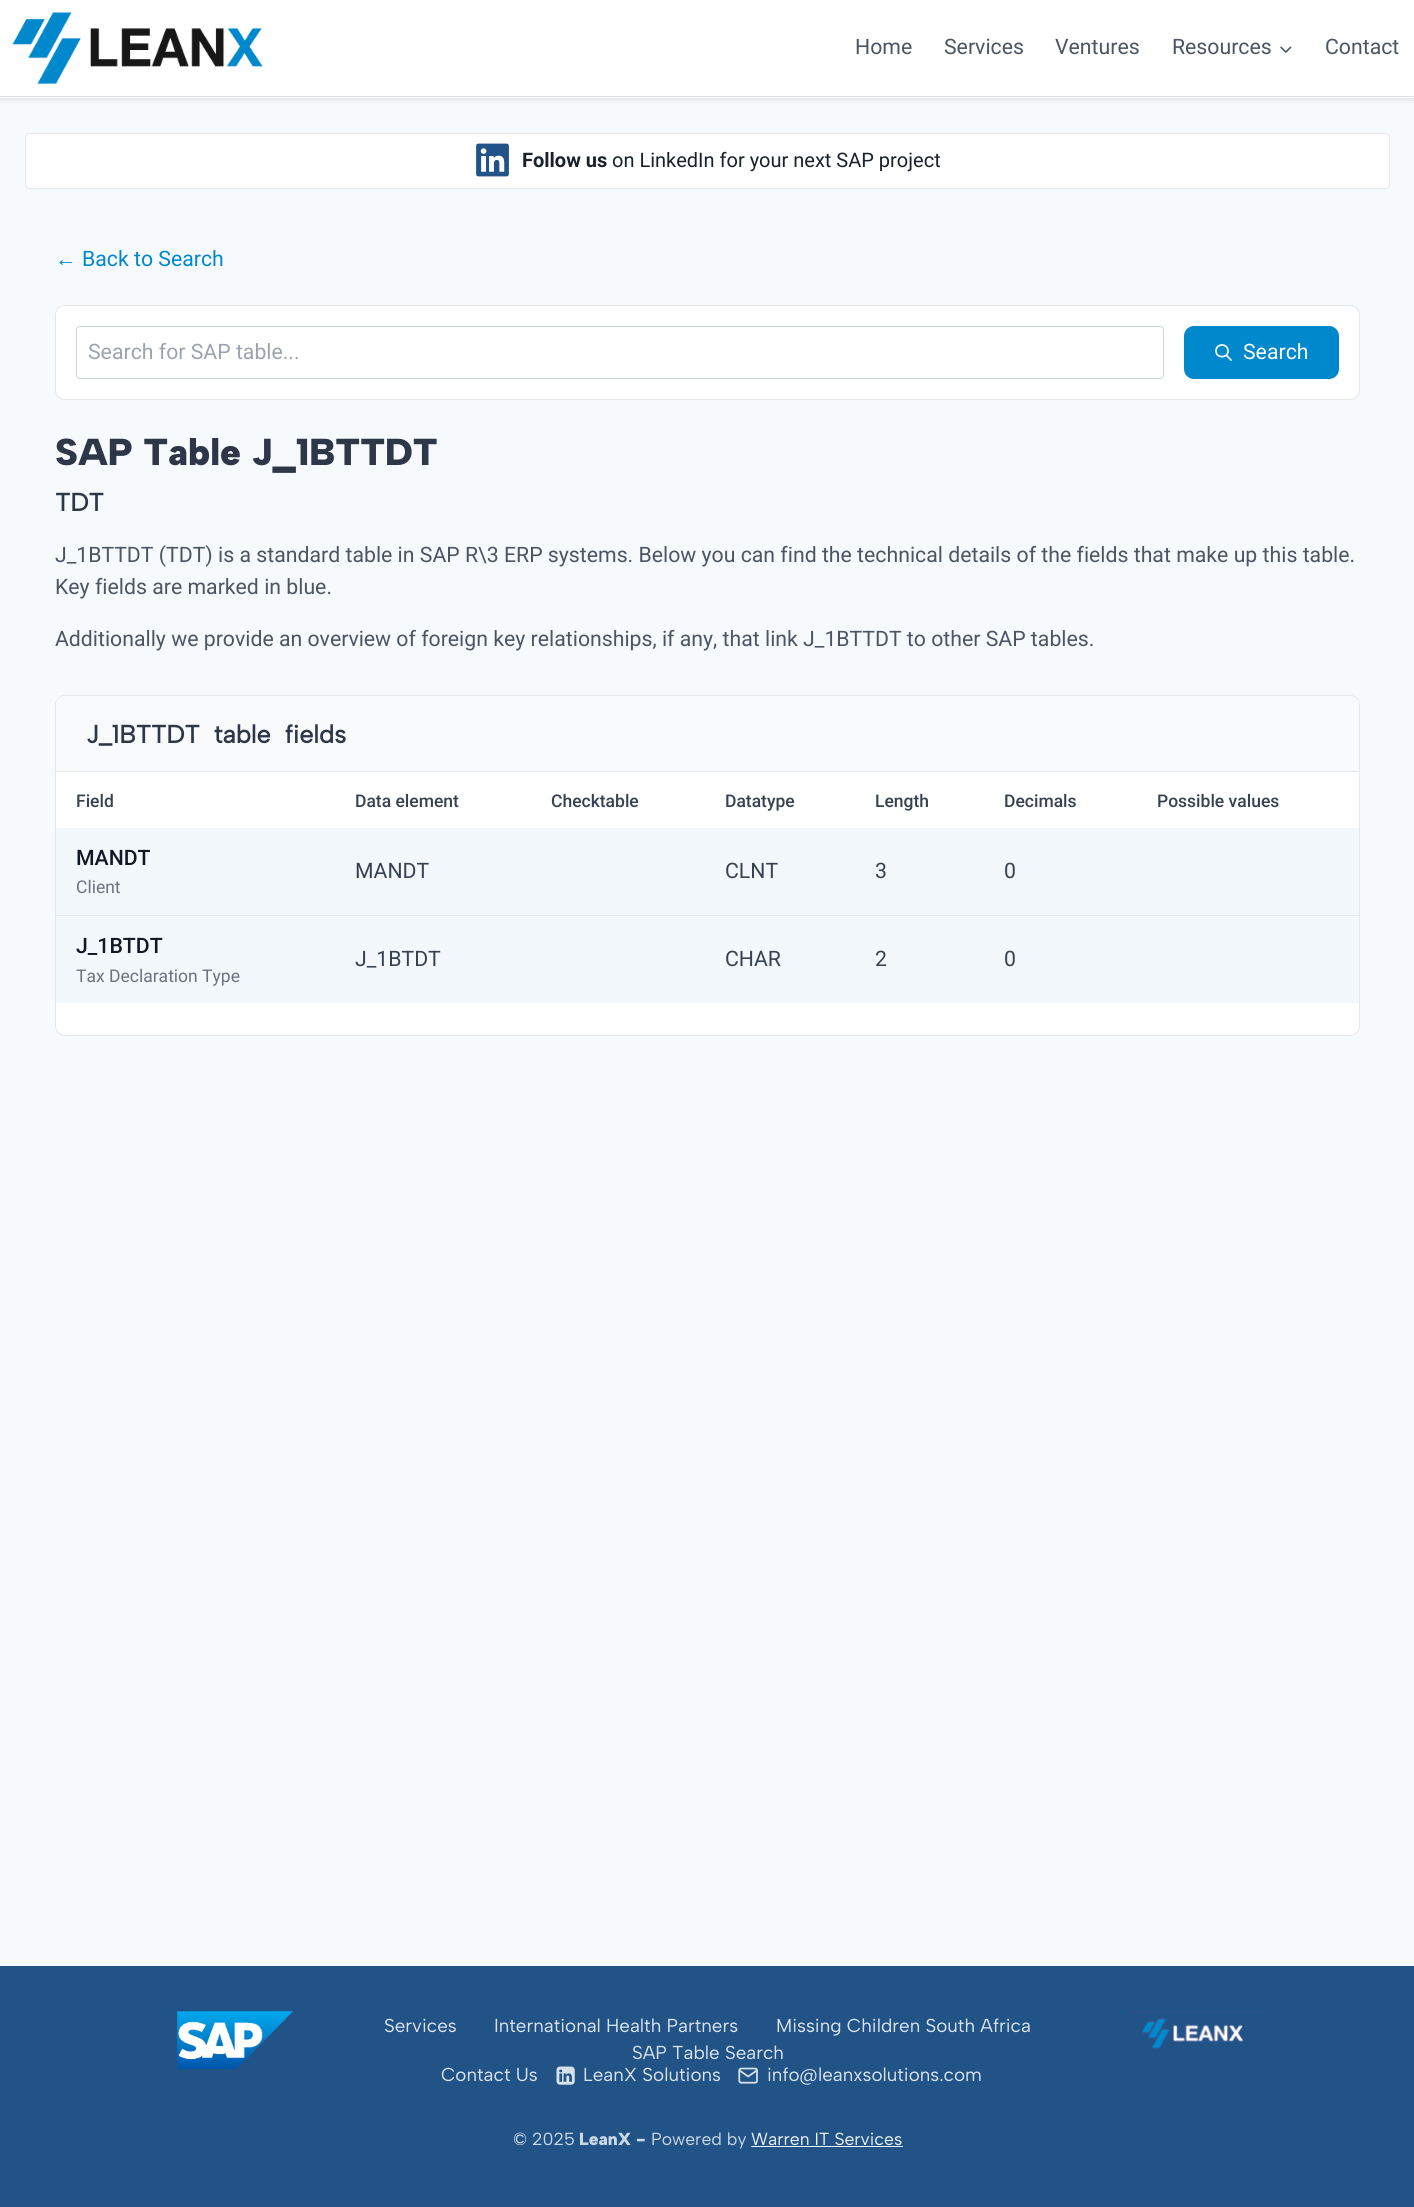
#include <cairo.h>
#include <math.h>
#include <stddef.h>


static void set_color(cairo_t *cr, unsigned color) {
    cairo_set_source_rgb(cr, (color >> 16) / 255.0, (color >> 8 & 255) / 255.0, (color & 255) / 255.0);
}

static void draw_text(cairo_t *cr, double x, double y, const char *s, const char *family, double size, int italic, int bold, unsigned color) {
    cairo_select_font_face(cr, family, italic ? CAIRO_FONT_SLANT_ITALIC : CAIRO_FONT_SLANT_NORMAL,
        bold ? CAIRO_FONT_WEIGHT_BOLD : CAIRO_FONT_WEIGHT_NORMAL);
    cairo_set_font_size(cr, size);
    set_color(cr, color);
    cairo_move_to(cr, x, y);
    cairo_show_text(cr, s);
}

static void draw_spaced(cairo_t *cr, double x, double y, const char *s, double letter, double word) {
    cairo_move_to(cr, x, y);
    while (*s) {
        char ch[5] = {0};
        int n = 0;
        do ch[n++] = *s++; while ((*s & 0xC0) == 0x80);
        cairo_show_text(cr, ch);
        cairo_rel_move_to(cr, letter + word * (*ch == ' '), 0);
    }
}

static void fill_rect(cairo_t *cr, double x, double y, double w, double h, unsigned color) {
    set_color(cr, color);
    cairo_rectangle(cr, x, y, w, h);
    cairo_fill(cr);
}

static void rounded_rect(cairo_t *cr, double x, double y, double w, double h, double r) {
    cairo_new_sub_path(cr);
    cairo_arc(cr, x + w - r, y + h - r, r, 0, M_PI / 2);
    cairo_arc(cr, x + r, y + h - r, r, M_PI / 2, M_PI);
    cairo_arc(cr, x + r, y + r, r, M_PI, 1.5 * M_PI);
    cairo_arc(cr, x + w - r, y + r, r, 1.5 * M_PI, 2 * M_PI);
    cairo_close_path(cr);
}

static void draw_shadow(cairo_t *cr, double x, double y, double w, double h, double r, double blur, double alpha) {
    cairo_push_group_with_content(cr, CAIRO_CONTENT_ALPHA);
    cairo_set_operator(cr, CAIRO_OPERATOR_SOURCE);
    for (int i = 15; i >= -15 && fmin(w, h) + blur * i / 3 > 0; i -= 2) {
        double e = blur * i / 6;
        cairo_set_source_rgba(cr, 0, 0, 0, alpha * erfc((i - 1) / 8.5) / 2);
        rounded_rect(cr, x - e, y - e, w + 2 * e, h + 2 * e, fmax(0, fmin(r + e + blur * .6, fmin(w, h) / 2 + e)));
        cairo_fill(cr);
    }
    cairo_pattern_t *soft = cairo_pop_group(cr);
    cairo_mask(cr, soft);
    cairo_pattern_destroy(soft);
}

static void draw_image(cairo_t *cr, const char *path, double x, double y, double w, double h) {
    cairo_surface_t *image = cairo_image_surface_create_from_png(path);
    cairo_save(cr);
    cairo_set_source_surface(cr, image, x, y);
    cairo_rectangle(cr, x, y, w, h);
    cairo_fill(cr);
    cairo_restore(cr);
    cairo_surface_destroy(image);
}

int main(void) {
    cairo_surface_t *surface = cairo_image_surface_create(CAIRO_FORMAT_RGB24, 1414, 2207);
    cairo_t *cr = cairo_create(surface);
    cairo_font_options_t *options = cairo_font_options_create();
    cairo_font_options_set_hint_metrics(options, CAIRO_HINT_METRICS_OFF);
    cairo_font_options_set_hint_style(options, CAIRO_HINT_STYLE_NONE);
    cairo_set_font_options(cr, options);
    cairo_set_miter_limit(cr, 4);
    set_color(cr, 0xF7FAFC);
    cairo_paint(cr);
    fill_rect(cr, 0, 0, 1414, 98, 0xFFFFFF);
    cairo_save(cr);
    cairo_set_fill_rule(cr, CAIRO_FILL_RULE_EVEN_ODD);
    cairo_new_path(cr);
    cairo_move_to(cr, 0, 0);
    cairo_line_to(cr, 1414, 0);
    cairo_line_to(cr, 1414, 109);
    cairo_line_to(cr, 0, 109);
    cairo_close_path(cr);
    cairo_move_to(cr, 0, 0);
    cairo_line_to(cr, 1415, 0);
    cairo_line_to(cr, 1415, 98);
    cairo_line_to(cr, 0, 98);
    cairo_close_path(cr);
    cairo_clip(cr);
    set_color(cr, 0x000000);
    draw_shadow(cr, 0, 3, 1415, 97, 0, 2.5, 0.1);
    cairo_restore(cr);
    fill_rect(cr, 0, 96, 1414, 1, 0xDEE2E6);
    draw_image(cr, "assets/img1.png", 12, 12, 251, 72);
    draw_text(cr, 855, 54, "Home", "Roboto", 21.25, 0, 0, 0x4B5563);
    draw_text(cr, 944, 54, "Services", "Roboto", 21.25, 0, 0, 0x4B5563);
    draw_text(cr, 1055, 54, "Ventures", "Roboto", 21.25, 0, 0, 0x4B5563);
    draw_text(cr, 1172, 54, "Resources", "Roboto", 21.25, 0, 0, 0x4B5563);
    draw_image(cr, "assets/img2.png", 1280, 46, 12, 7);
    draw_text(cr, 1325, 54, "Contact", "Roboto", 21.25, 0, 0, 0x4B5563);
    set_color(cr, 0xFFFFFF);
    rounded_rect(cr, 25.5, 133.5, 1364, 55, 3.5);
    cairo_fill_preserve(cr);
    set_color(cr, 0xE5E7EB);
    cairo_set_line_width(cr, 1);
    cairo_stroke(cr);
    draw_image(cr, "assets/img3.png", 476, 143, 33, 34);
    draw_text(cr, 522, 167, "Follow us", "Roboto", 20, 0, 1, 0x1A202C);
    draw_text(cr, 612, 167, "on LinkedIn for your next SAP project", "Roboto", 20, 0, 0, 0x1A202C);
    draw_text(cr, 55, 266, "←", "Liberation Sans", 21.25, 0, 0, 0x0088CC);
    draw_text(cr, 82, 266, "Back to Search", "Roboto", 21.25, 0, 0, 0x0088CC);
    set_color(cr, 0xFFFFFF);
    rounded_rect(cr, 55.5, 305.5, 1304, 94, 9.5);
    cairo_fill_preserve(cr);
    set_color(cr, 0xE5E7EB);
    cairo_stroke(cr);
    rounded_rect(cr, 76.5, 326.5, 1087, 52, 3.5);
    set_color(cr, 0xCBD5E0);
    cairo_stroke(cr);
    draw_text(cr, 88, 359, "Search for SAP table...", "Roboto", 21.25, 0, 0, 0x9CA3AF);
    set_color(cr, 0x0088CC);
    rounded_rect(cr, 1184, 326, 155, 53, 10);
    cairo_fill(cr);
    cairo_new_path(cr);
    cairo_move_to(cr, 1231, 360);
    cairo_line_to(cr, 1226, 355);
    cairo_move_to(cr, 1228, 351);
    cairo_curve_to(cr, 1228, 358.5, 1216, 358.5, 1216, 351);
    cairo_curve_to(cr, 1216, 343, 1228, 343, 1228, 351);
    cairo_close_path(cr);
    set_color(cr, 0xFFFFFF);
    cairo_set_line_width(cr, 1.7);
    cairo_set_line_cap(cr, CAIRO_LINE_CAP_ROUND);
    cairo_set_line_join(cr, CAIRO_LINE_JOIN_ROUND);
    cairo_stroke(cr);
    draw_text(cr, 1243, 359, "Search", "Roboto", 21.25, 0, 0, 0xFFFFFF);
    draw_text(cr, 55, 465, "SAP Table J_1BTTDT", "Albert Sans Black", 37.5, 0, 0, 0x2D3748);
    draw_text(cr, 55, 511, "TDT", "Albert Sans", 25, 0, 1, 0x2D3748);
    draw_text(cr, 55, 562, "J_1BTTDT (TDT) is a standard table in SAP R\\3 ERP systems. Below you can find the technical details of the fields that make up this table.", "Roboto", 21.25, 0, 0, 0x4B5563);
    draw_text(cr, 55, 594, "Key fields are marked in blue.", "Roboto", 21.25, 0, 0, 0x4B5563);
    draw_text(cr, 55, 646, "Additionally we provide an overview of foreign key relationships, if any, that link J_1BTTDT to other SAP tables.", "Roboto", 21.25, 0, 0, 0x4B5563);
    set_color(cr, 0xFFFFFF);
    rounded_rect(cr, 55.5, 695.5, 1304, 340, 9.5);
    cairo_fill_preserve(cr);
    set_color(cr, 0xE5E7EB);
    cairo_set_line_width(cr, 1);
    cairo_set_line_cap(cr, CAIRO_LINE_CAP_BUTT);
    cairo_set_line_join(cr, CAIRO_LINE_JOIN_MITER);
    cairo_stroke(cr);
    set_color(cr, 0xF9FAFB);
    cairo_new_path(cr);
    cairo_move_to(cr, 65, 696);
    cairo_line_to(cr, 1350, 696);
    cairo_curve_to(cr, 1355, 696, 1359, 700, 1359, 705);
    cairo_line_to(cr, 1359, 771);
    cairo_line_to(cr, 56, 771);
    cairo_line_to(cr, 56, 705);
    cairo_curve_to(cr, 56, 700, 60, 696, 65, 696);
    cairo_close_path(cr);
    cairo_fill(cr);
    fill_rect(cr, 56, 771, 1303, 1, 0xE5E7EB);
    cairo_select_font_face(cr, "Albert Sans", CAIRO_FONT_SLANT_NORMAL, CAIRO_FONT_WEIGHT_BOLD);
    cairo_set_font_size(cr, 25);
    set_color(cr, 0x2D3748);
    draw_spaced(cr, 86, 743, "J_1BTTDT table fields", 0, 7);
    draw_text(cr, 76, 807, "Field", "Roboto Medium", 17.5, 0, 0, 0x374151);
    draw_text(cr, 355, 807, "Data element", "Roboto Medium", 17.5, 0, 0, 0x374151);
    draw_text(cr, 551, 807, "Checktable", "Roboto Medium", 17.5, 0, 0, 0x374151);
    draw_text(cr, 725, 807, "Datatype", "Roboto Medium", 17.5, 0, 0, 0x374151);
    draw_text(cr, 875, 807, "Length", "Roboto Medium", 17.5, 0, 0, 0x374151);
    draw_text(cr, 1004, 807, "Decimals", "Roboto Medium", 17.5, 0, 0, 0x374151);
    draw_text(cr, 1157, 807, "Possible values", "Roboto Medium", 17.5, 0, 0, 0x374151);
    fill_rect(cr, 56, 828, 1303, 87, 0xF2F8FB);
    draw_text(cr, 76, 865, "MANDT", "Roboto Medium", 21.25, 0, 0, 0x111827);
    draw_text(cr, 76, 893, "Client", "Roboto", 17.5, 0, 0, 0x6B7280);
    draw_text(cr, 355, 878, "MANDT", "Roboto", 21.25, 0, 0, 0x374151);
    draw_text(cr, 725, 878, "CLNT", "Roboto", 21.25, 0, 0, 0x374151);
    draw_text(cr, 875, 878, "3", "Roboto", 21.25, 0, 0, 0x374151);
    draw_text(cr, 1004, 878, "0", "Roboto", 21.25, 0, 0, 0x374151);
    fill_rect(cr, 56, 916, 1303, 87, 0xF2F8FB);
    fill_rect(cr, 56, 915, 1303, 1, 0xE5E7EB);
    draw_text(cr, 76, 953, "J_1BTDT", "Roboto Medium", 21.25, 0, 0, 0x111827);
    draw_text(cr, 76, 982, "Tax Declaration Type", "Roboto", 17.5, 0, 0, 0x6B7280);
    draw_text(cr, 355, 966, "J_1BTDT", "Roboto", 21.25, 0, 0, 0x374151);
    draw_text(cr, 725, 966, "CHAR", "Roboto", 21.25, 0, 0, 0x374151);
    draw_text(cr, 875, 966, "2", "Roboto", 21.25, 0, 0, 0x374151);
    draw_text(cr, 1004, 966, "0", "Roboto", 21.25, 0, 0, 0x374151);
    fill_rect(cr, 0, 1966, 1414, 241, 0x215387);
    draw_image(cr, "assets/img4.png", 177, 2010, 116, 59);
    draw_text(cr, 384, 2032, "Services", "Albert Sans", 18.75, 0, 0, 0xDBE4ED);
    draw_text(cr, 494, 2032, "International Health Partners", "Albert Sans", 18.75, 0, 0, 0xDBE4ED);
    draw_text(cr, 776, 2032, "Missing Children South Africa", "Albert Sans", 18.75, 0, 0, 0xDBE4ED);
    draw_text(cr, 632, 2059, "SAP Table Search", "Albert Sans", 18.75, 0, 0, 0xDBE4ED);
    draw_image(cr, "assets/img5.png", 1130, 2011, 134, 38);
    draw_text(cr, 441, 2081, "Contact Us", "Albert Sans", 18.75, 0, 0, 0xDBE4ED);
    draw_image(cr, "assets/img6.png", 556, 2066, 19, 19);
    draw_text(cr, 583, 2081, "LeanX Solutions", "Albert Sans", 18.75, 0, 0, 0xDBE4ED);
    draw_image(cr, "assets/img7.png", 738, 2067, 20, 17);
    draw_text(cr, 767, 2081, "info@leanxsolutions.com", "Albert Sans", 18.75, 0, 0, 0xDBE4ED);
    draw_text(cr, 513, 2145, "© 2025", "Albert Sans", 17.5, 0, 0, 0xCAD7E4);
    draw_text(cr, 579, 2145, "LeanX -", "Albert Sans Black", 17.5, 0, 0, 0xCAD7E4);
    draw_text(cr, 651, 2145, "Powered by", "Albert Sans", 17.5, 0, 0, 0xCAD7E4);
    draw_text(cr, 751, 2145, "Warren IT Services", "Albert Sans", 17.5, 0, 0, 0xEDF2F7);
    fill_rect(cr, 751, 2146, 152, 1, 0xEDF2F7);
    cairo_surface_write_to_png(surface, "output.png");
    cairo_font_options_destroy(options);
    cairo_destroy(cr);
    cairo_surface_destroy(surface);
    return 0;
}
